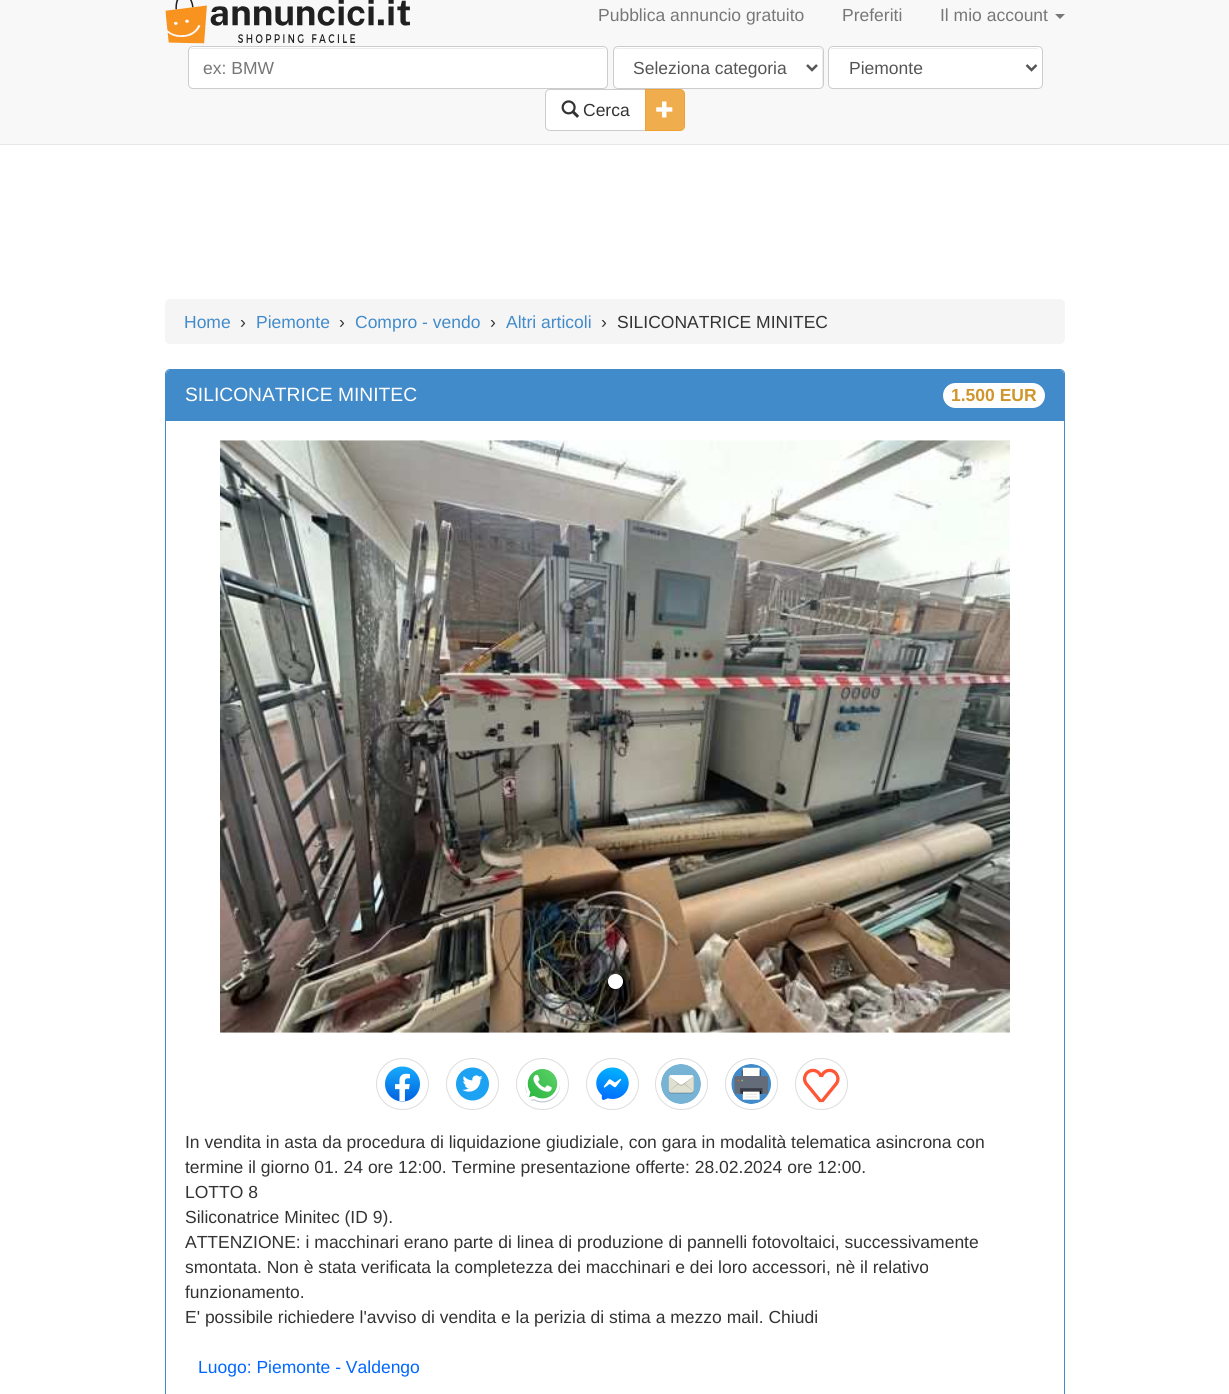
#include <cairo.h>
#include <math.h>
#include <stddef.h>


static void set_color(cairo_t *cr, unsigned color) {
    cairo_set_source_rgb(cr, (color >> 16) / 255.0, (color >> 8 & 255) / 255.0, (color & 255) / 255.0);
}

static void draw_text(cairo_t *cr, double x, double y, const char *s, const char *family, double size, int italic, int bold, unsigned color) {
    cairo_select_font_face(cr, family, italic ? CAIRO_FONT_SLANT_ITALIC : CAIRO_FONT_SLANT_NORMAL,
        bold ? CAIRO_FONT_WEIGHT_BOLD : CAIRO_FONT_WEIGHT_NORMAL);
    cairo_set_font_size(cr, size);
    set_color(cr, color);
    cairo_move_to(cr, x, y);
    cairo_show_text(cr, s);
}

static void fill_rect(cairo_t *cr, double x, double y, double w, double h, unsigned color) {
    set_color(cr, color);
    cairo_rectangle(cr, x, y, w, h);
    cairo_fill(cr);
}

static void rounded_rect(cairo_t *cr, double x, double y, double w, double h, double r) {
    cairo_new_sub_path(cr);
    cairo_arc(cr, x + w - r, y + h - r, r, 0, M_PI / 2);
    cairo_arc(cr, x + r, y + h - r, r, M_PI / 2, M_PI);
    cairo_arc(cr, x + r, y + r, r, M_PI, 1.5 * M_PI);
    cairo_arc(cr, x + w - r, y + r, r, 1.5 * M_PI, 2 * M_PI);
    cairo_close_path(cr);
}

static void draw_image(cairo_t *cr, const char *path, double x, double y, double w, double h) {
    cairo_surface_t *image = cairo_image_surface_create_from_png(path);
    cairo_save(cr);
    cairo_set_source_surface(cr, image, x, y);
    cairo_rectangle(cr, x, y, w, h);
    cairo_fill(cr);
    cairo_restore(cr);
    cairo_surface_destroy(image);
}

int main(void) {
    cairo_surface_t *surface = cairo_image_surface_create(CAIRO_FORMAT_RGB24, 1229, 1394);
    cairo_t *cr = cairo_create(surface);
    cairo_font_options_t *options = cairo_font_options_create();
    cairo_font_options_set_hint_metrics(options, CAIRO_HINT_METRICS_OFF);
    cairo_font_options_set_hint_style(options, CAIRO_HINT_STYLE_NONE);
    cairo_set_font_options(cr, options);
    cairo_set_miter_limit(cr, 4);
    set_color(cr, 0xFFFFFF);
    cairo_paint(cr);
    fill_rect(cr, 0, 0, 1229, 144, 0xF8F8F8);
    fill_rect(cr, 0, 144, 1229, 1, 0xE7E7E7);
    draw_image(cr, "assets/img1.png", 165, 0, 245, 44);
    draw_text(cr, 598, 21, "Pubblica annuncio gratuito", "Liberation Sans", 17.5, 0, 0, 0x777777);
    draw_text(cr, 842, 21, "Preferiti", "Liberation Sans", 17.5, 0, 0, 0x777777);
    draw_text(cr, 940, 21, "Il mio account", "Liberation Sans", 17.5, 0, 0, 0x777777);
    cairo_new_path(cr);
    cairo_move_to(cr, 1055, 14);
    cairo_line_to(cr, 1065, 14);
    cairo_line_to(cr, 1060, 19);
    cairo_close_path(cr);
    cairo_fill(cr);
    set_color(cr, 0xFFFFFF);
    rounded_rect(cr, 188, 46, 420, 43, 5);
    cairo_fill(cr);
    set_color(cr, 0xECECEC);
    cairo_new_path(cr);
    cairo_move_to(cr, 192, 49);
    cairo_line_to(cr, 602, 49);
    cairo_curve_to(cr, 604, 49, 605, 49, 606, 50);
    cairo_curve_to(cr, 605, 49, 604, 48, 602, 48);
    cairo_line_to(cr, 193, 48);
    cairo_curve_to(cr, 192, 48, 190, 49, 190, 50);
    cairo_close_path(cr);
    cairo_fill(cr);
    rounded_rect(cr, 188.5, 46.5, 419, 42, 4.5);
    set_color(cr, 0xCCCCCC);
    cairo_set_line_width(cr, 1);
    cairo_stroke(cr);
    draw_text(cr, 203, 74, "ex: BMW", "Liberation Sans", 17.5, 0, 0, 0x777777);
    set_color(cr, 0xFFFFFF);
    rounded_rect(cr, 613, 46, 211, 43, 5);
    cairo_fill(cr);
    set_color(cr, 0xECECEC);
    cairo_new_path(cr);
    cairo_move_to(cr, 618, 49);
    cairo_line_to(cr, 819, 49);
    cairo_curve_to(cr, 821, 49, 822, 50, 822, 52);
    cairo_line_to(cr, 822, 87);
    cairo_curve_to(cr, 822, 86, 823, 85, 823, 84);
    cairo_line_to(cr, 823, 52);
    cairo_curve_to(cr, 823, 50, 821, 48, 819, 48);
    cairo_line_to(cr, 618, 48);
    cairo_curve_to(cr, 616, 48, 615, 49, 614, 50);
    cairo_curve_to(cr, 615, 49, 616, 49, 618, 49);
    cairo_close_path(cr);
    cairo_fill(cr);
    rounded_rect(cr, 613.5, 46.5, 210, 42, 4.5);
    set_color(cr, 0xCCCCCC);
    cairo_stroke(cr);
    cairo_new_path(cr);
    cairo_move_to(cr, 807, 65);
    cairo_line_to(cr, 812, 70);
    cairo_line_to(cr, 817, 65);
    set_color(cr, 0x555555);
    cairo_set_line_width(cr, 2.5);
    cairo_stroke(cr);
    draw_text(cr, 633, 74, "Seleziona categoria", "Liberation Sans", 17.5, 0, 0, 0x555555);
    set_color(cr, 0xFFFFFF);
    rounded_rect(cr, 828, 46, 215, 43, 5);
    cairo_fill(cr);
    set_color(cr, 0xECECEC);
    cairo_new_path(cr);
    cairo_move_to(cr, 832, 49);
    cairo_line_to(cr, 1038, 49);
    cairo_line_to(cr, 1040, 50);
    cairo_line_to(cr, 1039, 49);
    cairo_line_to(cr, 1037, 48);
    cairo_line_to(cr, 1003, 48);
    cairo_line_to(cr, 832, 48);
    cairo_line_to(cr, 830, 50);
    cairo_close_path(cr);
    cairo_fill(cr);
    rounded_rect(cr, 828.5, 46.5, 214, 42, 4.5);
    set_color(cr, 0xCCCCCC);
    cairo_set_line_width(cr, 1);
    cairo_stroke(cr);
    cairo_new_path(cr);
    cairo_move_to(cr, 1026.5, 65);
    cairo_line_to(cr, 1031.5, 70);
    cairo_line_to(cr, 1036.5, 65);
    set_color(cr, 0x555555);
    cairo_set_line_width(cr, 2.5);
    cairo_stroke(cr);
    draw_text(cr, 849, 74, "Piemonte", "Liberation Sans", 17.5, 0, 0, 0x555555);
    set_color(cr, 0xFFFFFF);
    cairo_new_path(cr);
    cairo_move_to(cr, 550, 89.5);
    cairo_line_to(cr, 645.5, 89.5);
    cairo_line_to(cr, 645.5, 130.5);
    cairo_line_to(cr, 550, 130.5);
    cairo_curve_to(cr, 547.5, 130.5, 545.5, 128.5, 545.5, 126);
    cairo_line_to(cr, 545.5, 94);
    cairo_curve_to(cr, 545.5, 91.5, 547.5, 89.5, 550, 89.5);
    cairo_close_path(cr);
    cairo_fill_preserve(cr);
    set_color(cr, 0xCCCCCC);
    cairo_set_line_width(cr, 1);
    cairo_stroke(cr);
    draw_image(cr, "assets/img2.png", 561, 100, 18, 18);
    draw_text(cr, 583, 116, "Cerca", "Liberation Sans", 17.5, 0, 0, 0x333333);
    set_color(cr, 0xF0AD4E);
    cairo_new_path(cr);
    cairo_move_to(cr, 645.5, 89.5);
    cairo_line_to(cr, 680, 89.5);
    cairo_curve_to(cr, 682.5, 89.5, 684.5, 91.5, 684.5, 94);
    cairo_line_to(cr, 684.5, 126);
    cairo_curve_to(cr, 684.5, 128.5, 682.5, 130.5, 680, 130.5);
    cairo_line_to(cr, 645.5, 130.5);
    cairo_close_path(cr);
    cairo_fill_preserve(cr);
    set_color(cr, 0xEEA236);
    cairo_stroke(cr);
    draw_image(cr, "assets/img3.png", 656, 101, 17, 17);
    set_color(cr, 0xF5F5F5);
    rounded_rect(cr, 165, 299, 900, 45, 5);
    cairo_fill(cr);
    draw_text(cr, 184, 328, "Home", "Liberation Sans", 17.5, 0, 0, 0x428BCA);
    draw_text(cr, 240, 328, "›", "Liberation Sans", 17.5, 0, 0, 0x333333);
    draw_text(cr, 256, 328, "Piemonte", "Liberation Sans", 17.5, 0, 0, 0x428BCA);
    draw_text(cr, 339, 328, "›", "Liberation Sans", 17.5, 0, 0, 0x333333);
    draw_text(cr, 355, 328, "Compro - vendo", "Liberation Sans", 17.5, 0, 0, 0x428BCA);
    draw_text(cr, 490, 328, "›", "Liberation Sans", 17.5, 0, 0, 0x333333);
    draw_text(cr, 506, 328, "Altri articoli", "Liberation Sans", 17.5, 0, 0, 0x428BCA);
    draw_text(cr, 601, 328, "›", "Liberation Sans", 17.5, 0, 0, 0x333333);
    draw_text(cr, 617, 328, "SILICONATRICE MINITEC", "Liberation Sans", 17.5, 0, 0, 0x333333);
    rounded_rect(cr, 165.5, 369.5, 899, 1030, 4.5);
    set_color(cr, 0x428BCA);
    cairo_stroke(cr);
    cairo_new_path(cr);
    cairo_move_to(cr, 170, 370);
    cairo_line_to(cr, 1060, 370);
    cairo_curve_to(cr, 1062, 370, 1064, 372, 1064, 374);
    cairo_line_to(cr, 1064, 421);
    cairo_line_to(cr, 166, 421);
    cairo_line_to(cr, 166, 374);
    cairo_curve_to(cr, 166, 372, 168, 370, 170, 370);
    cairo_close_path(cr);
    cairo_fill(cr);
    draw_text(cr, 185, 401, "SILICONATRICE MINITEC", "Liberation Sans", 19.25, 0, 0, 0xFFFFFF);
    rounded_rect(cr, 943, 383, 102, 25, 12.5);
    cairo_fill(cr);
    draw_text(cr, 951, 401, "1.500 EUR", "Liberation Sans", 17.5, 0, 1, 0xD1952E);
    draw_image(cr, "assets/img4.png", 220, 440, 790, 593);
    set_color(cr, 0xFFFFFF);
    cairo_arc(cr, 615.5, 981.5, 7, 0, 2 * M_PI);
    cairo_fill_preserve(cr);
    cairo_stroke(cr);
    rounded_rect(cr, 376.5, 1058.5, 52, 51, 25.5);
    set_color(cr, 0xDDDDDD);
    cairo_stroke(cr);
    draw_image(cr, "assets/img5.png", 385, 1066, 35, 36);
    rounded_rect(cr, 446.5, 1058.5, 52, 51, 25.5);
    cairo_stroke(cr);
    draw_image(cr, "assets/img6.png", 456, 1067, 33, 34);
    rounded_rect(cr, 516.5, 1058.5, 52, 51, 25.5);
    cairo_stroke(cr);
    draw_image(cr, "assets/img7.png", 525, 1068, 35, 35);
    rounded_rect(cr, 586.5, 1058.5, 52, 51, 25.5);
    cairo_stroke(cr);
    draw_image(cr, "assets/img8.png", 596, 1067, 33, 33);
    rounded_rect(cr, 655.5, 1058.5, 52, 51, 25.5);
    cairo_stroke(cr);
    draw_image(cr, "assets/img9.png", 661, 1064, 40, 40);
    rounded_rect(cr, 725.5, 1058.5, 52, 51, 25.5);
    cairo_stroke(cr);
    draw_image(cr, "assets/img10.png", 731, 1064, 40, 40);
    rounded_rect(cr, 795.5, 1058.5, 52, 51, 25.5);
    cairo_stroke(cr);
    draw_image(cr, "assets/img11.png", 802, 1068, 38, 35);
    draw_text(cr, 185, 1148, "In vendita in asta da procedura di liquidazione giudiziale, con gara in modalità telematica asincrona con", "Liberation Sans", 17.5, 0, 0, 0x333333);
    draw_text(cr, 185, 1173, "termine il giorno 01. 24 ore 12:00. Termine presentazione offerte: 28.02.2024 ore 12:00.", "Liberation Sans", 17.5, 0, 0, 0x333333);
    draw_text(cr, 185, 1198, "LOTTO 8", "Liberation Sans", 17.5, 0, 0, 0x333333);
    draw_text(cr, 185, 1223, "Siliconatrice Minitec (ID 9).", "Liberation Sans", 17.5, 0, 0, 0x333333);
    draw_text(cr, 185, 1248, "ATTENZIONE: i macchinari erano parte di linea di produzione di pannelli fotovoltaici, successivamente", "Liberation Sans", 17.5, 0, 0, 0x333333);
    draw_text(cr, 185, 1273, "smontata. Non è stata verificata la completezza dei macchinari e dei loro accessori, nè il relativo", "Liberation Sans", 17.5, 0, 0, 0x333333);
    draw_text(cr, 185, 1298, "funzionamento.", "Liberation Sans", 17.5, 0, 0, 0x333333);
    draw_text(cr, 185, 1323, "E' possibile richiedere l'avviso di vendita e la perizia di stima a mezzo mail. Chiudi", "Liberation Sans", 17.5, 0, 0, 0x333333);
    draw_text(cr, 198, 1373, "Luogo: Piemonte - Valdengo", "Liberation Sans", 17.5, 0, 0, 0x0066FF);
    cairo_surface_write_to_png(surface, "output.png");
    cairo_font_options_destroy(options);
    cairo_destroy(cr);
    cairo_surface_destroy(surface);
    return 0;
}
